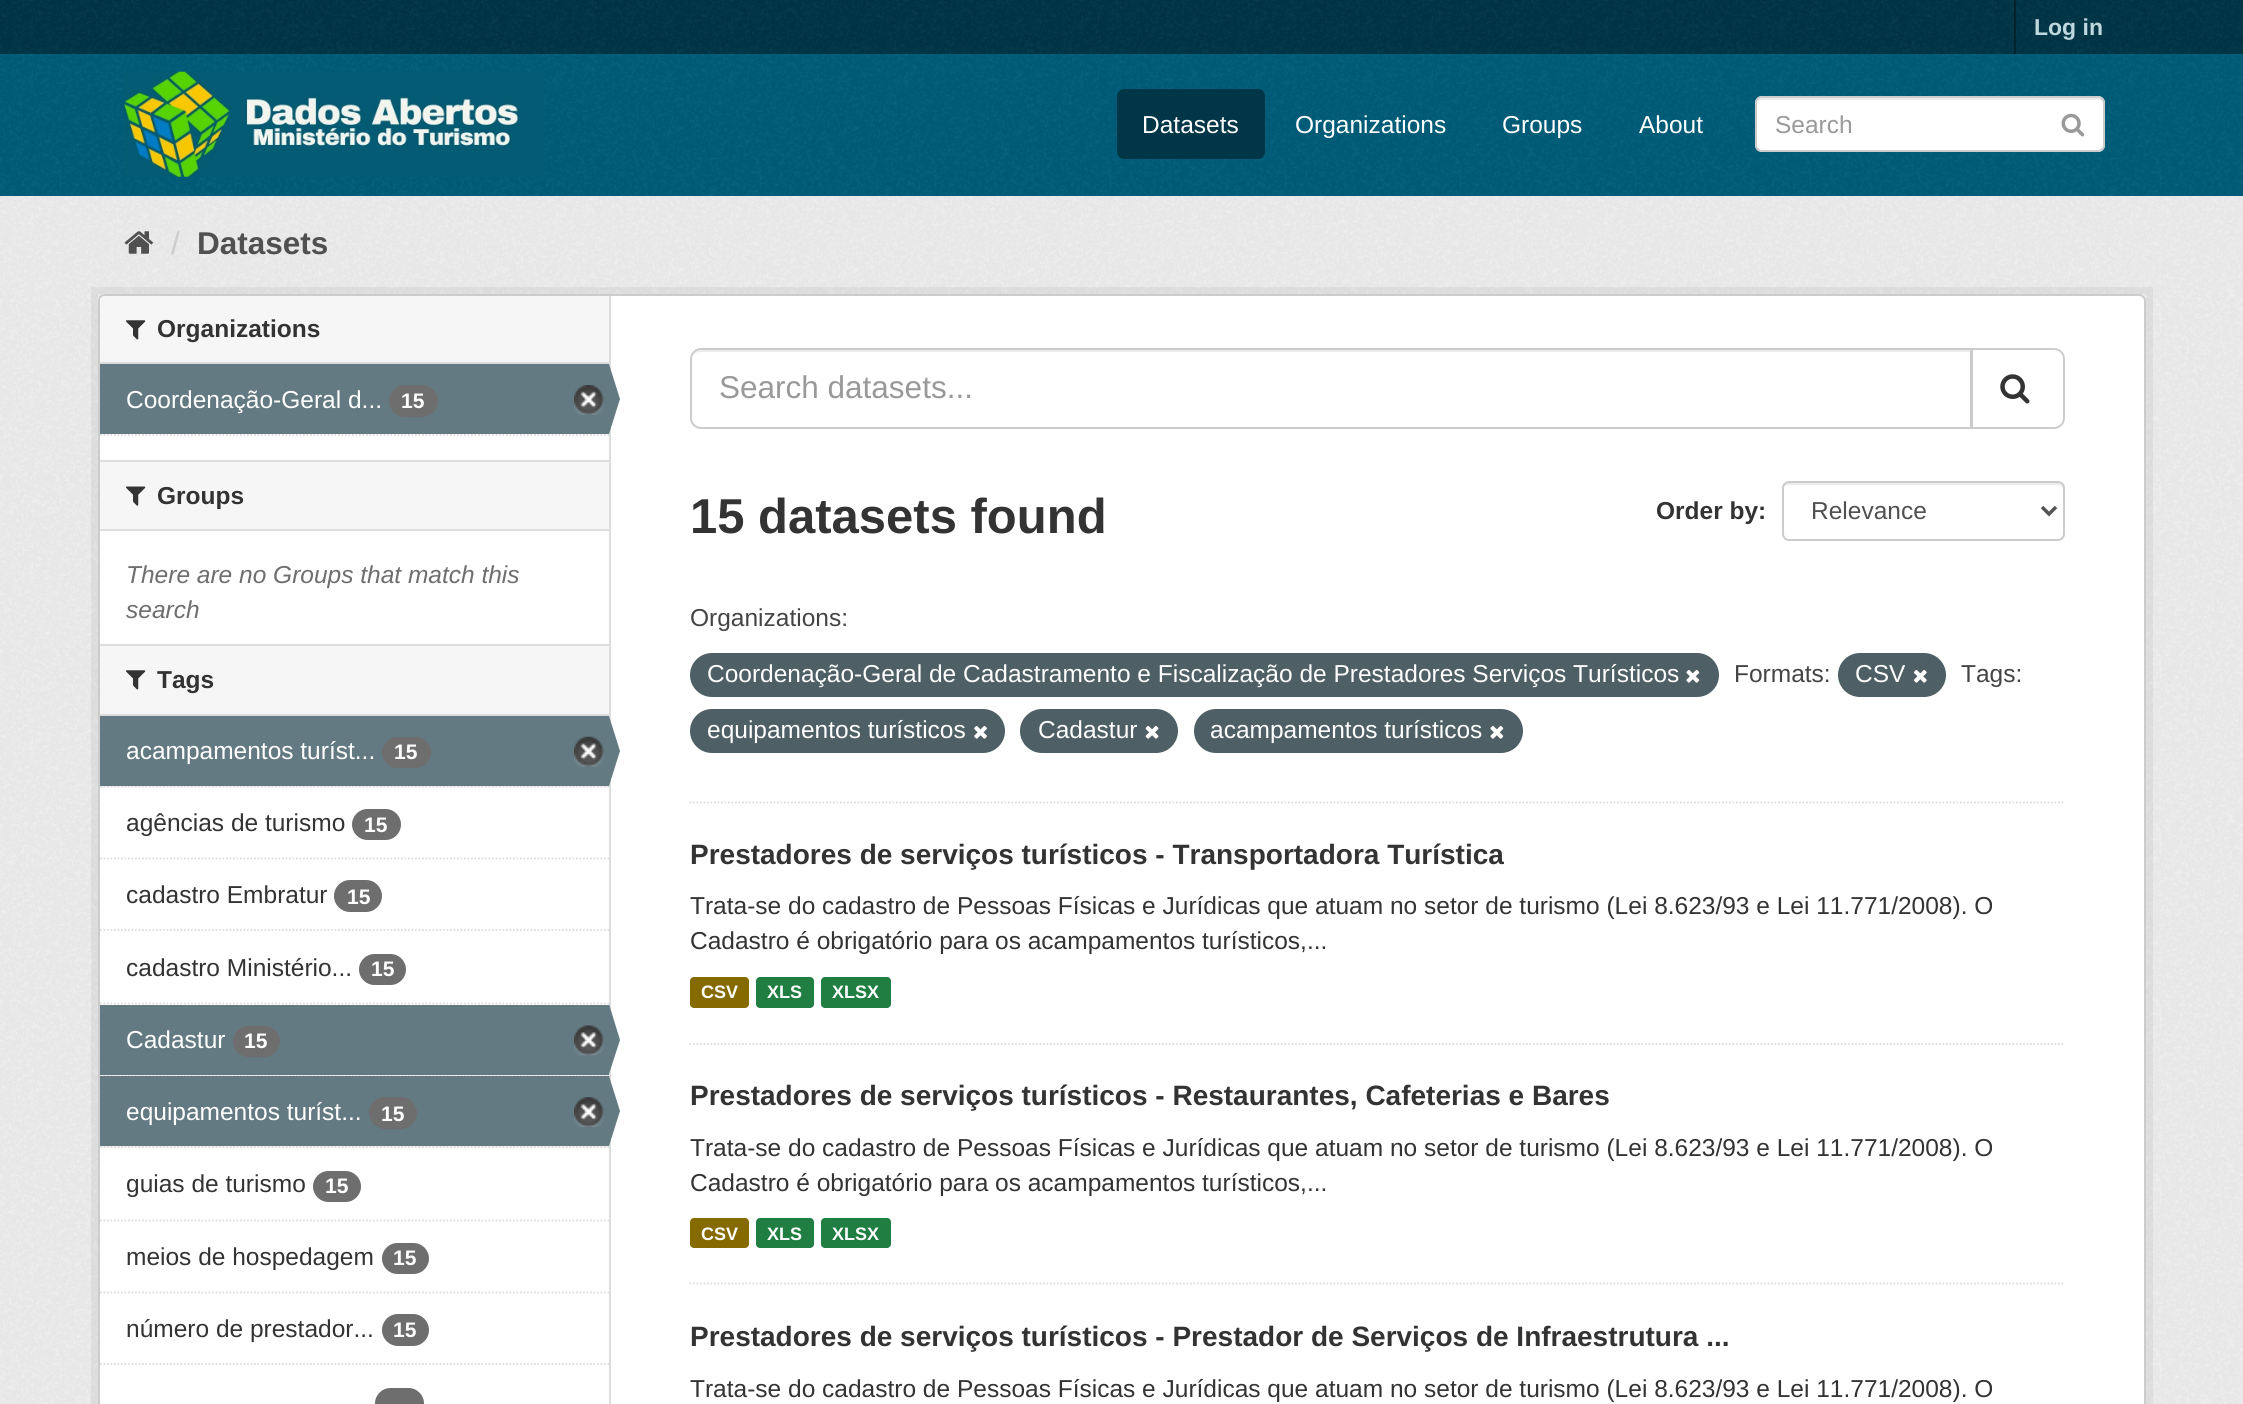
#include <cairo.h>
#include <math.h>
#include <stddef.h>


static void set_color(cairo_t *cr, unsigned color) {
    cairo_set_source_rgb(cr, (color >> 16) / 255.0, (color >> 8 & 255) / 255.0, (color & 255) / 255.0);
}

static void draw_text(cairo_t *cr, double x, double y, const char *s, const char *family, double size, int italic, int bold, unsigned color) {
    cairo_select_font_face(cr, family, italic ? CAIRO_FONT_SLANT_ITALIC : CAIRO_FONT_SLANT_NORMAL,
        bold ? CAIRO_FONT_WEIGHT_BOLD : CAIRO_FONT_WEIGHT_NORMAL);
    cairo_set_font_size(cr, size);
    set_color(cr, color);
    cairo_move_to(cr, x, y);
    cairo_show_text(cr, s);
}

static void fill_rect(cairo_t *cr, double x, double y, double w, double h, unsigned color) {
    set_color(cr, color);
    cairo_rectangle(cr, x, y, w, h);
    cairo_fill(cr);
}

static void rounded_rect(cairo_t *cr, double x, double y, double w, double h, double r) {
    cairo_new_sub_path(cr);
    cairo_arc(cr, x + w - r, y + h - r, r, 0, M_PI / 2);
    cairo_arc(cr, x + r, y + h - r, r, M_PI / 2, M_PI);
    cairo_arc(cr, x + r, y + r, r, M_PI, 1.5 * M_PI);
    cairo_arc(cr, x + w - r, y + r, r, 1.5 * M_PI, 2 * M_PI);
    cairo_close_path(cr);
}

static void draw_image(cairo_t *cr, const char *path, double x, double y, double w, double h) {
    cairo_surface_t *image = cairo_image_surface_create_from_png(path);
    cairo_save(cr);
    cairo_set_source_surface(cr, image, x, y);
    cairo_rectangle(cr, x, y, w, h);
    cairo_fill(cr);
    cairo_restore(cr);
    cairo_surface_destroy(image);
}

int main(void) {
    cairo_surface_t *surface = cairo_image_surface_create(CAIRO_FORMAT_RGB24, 2243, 1404);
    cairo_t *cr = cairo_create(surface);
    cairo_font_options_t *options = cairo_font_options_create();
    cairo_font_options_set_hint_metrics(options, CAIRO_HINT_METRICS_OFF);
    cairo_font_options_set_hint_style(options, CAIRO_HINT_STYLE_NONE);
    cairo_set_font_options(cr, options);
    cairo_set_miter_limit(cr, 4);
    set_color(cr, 0x003647);
    cairo_paint(cr);
    draw_image(cr, "assets/img1.png", 0, 0, 2243, 54);
    fill_rect(cr, 2014, 0, 2, 54, 0x00232E);
    draw_text(cr, 2034, 35, "Log in", "Liberation Sans", 23, 0, 1, 0xBFD7DE);
    fill_rect(cr, 0, 54, 2243, 142, 0x005D7A);
    draw_image(cr, "assets/img2.png", 0, 54, 2243, 142);
    draw_image(cr, "assets/img3.png", 124, 71, 420, 106);
    set_color(cr, 0x003647);
    rounded_rect(cr, 1117, 89, 148, 70, 7);
    cairo_fill(cr);
    draw_text(cr, 1142, 133, "Datasets", "Liberation Sans", 24.5, 0, 0, 0xFFFFFF);
    draw_text(cr, 1295, 133, "Organizations", "Liberation Sans", 24.5, 0, 0, 0xFFFFFF);
    draw_text(cr, 1502, 133, "Groups", "Liberation Sans", 24.5, 0, 0, 0xFFFFFF);
    draw_text(cr, 1639, 133, "About", "Liberation Sans", 24.5, 0, 0, 0xFFFFFF);
    rounded_rect(cr, 1755, 96, 350, 56, 7);
    cairo_fill(cr);
    set_color(cr, 0xECECEC);
    cairo_new_path(cr);
    cairo_move_to(cr, 1762, 100);
    cairo_line_to(cr, 2098, 100);
    cairo_curve_to(cr, 2101, 100, 2104, 102, 2104, 105);
    cairo_curve_to(cr, 2104, 102, 2103, 98, 2099, 98);
    cairo_line_to(cr, 1762, 98);
    cairo_curve_to(cr, 1758, 98, 1757, 102, 1757, 105);
    cairo_curve_to(cr, 1757, 102, 1759, 100, 1762, 100);
    cairo_close_path(cr);
    cairo_fill(cr);
    rounded_rect(cr, 1756, 97, 348, 54, 6);
    set_color(cr, 0xCCCCCC);
    cairo_stroke(cr);
    draw_text(cr, 1775, 133, "Search", "Liberation Sans", 24.5, 0, 0, 0x999999);
    draw_image(cr, "assets/img4.png", 2061, 113, 24, 24);
    fill_rect(cr, 0, 196, 2243, 1208, 0xEEEEEE);
    draw_image(cr, "assets/img5.png", 0, 196, 2243, 1208);
    draw_image(cr, "assets/img6.png", 124, 231, 29, 23);
    draw_text(cr, 171, 254, "/", "Liberation Sans", 31.5, 0, 0, 0xCCCCCC);
    draw_text(cr, 197, 254, "Datasets", "Liberation Sans", 31.5, 0, 1, 0x505050);
    cairo_rectangle(cr, 94.5, 290.5, 2055, 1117);
    cairo_set_source_rgba(cr, 0, 0, 0, 0.05);
    cairo_set_line_width(cr, 7);
    cairo_stroke(cr);
    set_color(cr, 0xFFFFFF);
    rounded_rect(cr, 99, 295, 2046, 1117, 6);
    cairo_fill_preserve(cr);
    set_color(cr, 0xCCCCCC);
    cairo_set_line_width(cr, 2);
    cairo_stroke(cr);
    set_color(cr, 0xF6F6F6);
    cairo_new_path(cr);
    cairo_move_to(cr, 105, 296);
    cairo_line_to(cr, 609, 296);
    cairo_line_to(cr, 609, 364);
    cairo_line_to(cr, 100, 364);
    cairo_line_to(cr, 100, 301);
    cairo_curve_to(cr, 100, 298, 102, 296, 105, 296);
    cairo_close_path(cr);
    cairo_fill(cr);
    fill_rect(cr, 100, 362, 509, 2, 0xDDDDDD);
    draw_image(cr, "assets/img7.png", 126, 320, 20, 20);
    draw_text(cr, 157, 337, "Organizations", "Liberation Sans", 24.5, 0, 1, 0x333333);
    fill_rect(cr, 100, 364, 509, 70, 0x647A82);
    draw_text(cr, 126, 408, "Coordenação-Geral d...", "Liberation Sans", 24.5, 0, 0, 0xFFFFFF);
    set_color(cr, 0x6E6E6E);
    rounded_rect(cr, 389, 385, 49, 32, 16);
    cairo_fill(cr);
    draw_text(cr, 401, 408, "15", "Liberation Sans", 21, 0, 1, 0xFFFFFF);
    draw_image(cr, "assets/img8.png", 574, 385, 30, 30);
    fill_rect(cr, 609, 296, 2, 1108, 0xDDDDDD);
    set_color(cr, 0x647A82);
    cairo_new_path(cr);
    cairo_move_to(cr, 609, 434);
    cairo_line_to(cr, 609, 364);
    cairo_line_to(cr, 620, 399);
    cairo_close_path(cr);
    cairo_fill(cr);
    cairo_new_path(cr);
    cairo_move_to(cr, 100, 435);
    cairo_line_to(cr, 609, 435);
    set_color(cr, 0xDDDDDD);
    cairo_set_line_width(cr, 1.8);
    cairo_set_dash(cr, (double[]){1.75, 1.75}, 2, 0);
    cairo_stroke(cr);
    fill_rect(cr, 100, 462, 509, 67, 0xF6F6F6);
    fill_rect(cr, 100, 460, 509, 2, 0xDDDDDD);
    fill_rect(cr, 100, 529, 509, 2, 0xDDDDDD);
    draw_image(cr, "assets/img9.png", 126, 486, 20, 20);
    draw_text(cr, 157, 504, "Groups", "Liberation Sans", 24.5, 0, 1, 0x333333);
    draw_text(cr, 126, 583, "There are no Groups that match this", "Liberation Sans", 24.5, 1, 0, 0x6E6E6E);
    draw_text(cr, 126, 618, "search", "Liberation Sans", 24.5, 1, 0, 0x6E6E6E);
    fill_rect(cr, 100, 646, 509, 68, 0xF6F6F6);
    fill_rect(cr, 100, 644, 509, 2, 0xDDDDDD);
    fill_rect(cr, 100, 714, 509, 2, 0xDDDDDD);
    draw_image(cr, "assets/img7.png", 126, 670, 20, 20);
    draw_text(cr, 157, 688, "Tags", "Liberation Sans", 24.5, 0, 1, 0x333333);
    fill_rect(cr, 100, 786, 509, 2, 0xF6F6F6);
    cairo_new_path(cr);
    cairo_move_to(cr, 100, 786.5);
    cairo_line_to(cr, 609, 786.5);
    set_color(cr, 0xDDDDDD);
    cairo_stroke(cr);
    fill_rect(cr, 100, 716, 509, 70, 0x647A82);
    draw_text(cr, 126, 759, "acampamentos turíst...", "Liberation Sans", 24.5, 0, 0, 0xFFFFFF);
    set_color(cr, 0x6E6E6E);
    rounded_rect(cr, 382, 737, 49, 31, 15.5);
    cairo_fill(cr);
    draw_text(cr, 394, 759, "15", "Liberation Sans", 21, 0, 1, 0xFFFFFF);
    draw_image(cr, "assets/img10.png", 574, 736, 30, 31);
    set_color(cr, 0x647A82);
    cairo_new_path(cr);
    cairo_move_to(cr, 609, 786);
    cairo_line_to(cr, 609, 716);
    cairo_line_to(cr, 620, 751);
    cairo_close_path(cr);
    cairo_fill(cr);
    cairo_new_path(cr);
    cairo_move_to(cr, 100, 858.5);
    cairo_line_to(cr, 609, 858.5);
    set_color(cr, 0xDDDDDD);
    cairo_stroke(cr);
    draw_text(cr, 126, 831, "agências de turismo", "Liberation Sans", 24.5, 0, 0, 0x333333);
    set_color(cr, 0x6E6E6E);
    rounded_rect(cr, 352, 809, 49, 31, 15.5);
    cairo_fill(cr);
    draw_text(cr, 364, 832, "15", "Liberation Sans", 21, 0, 1, 0xFFFFFF);
    cairo_new_path(cr);
    cairo_move_to(cr, 100, 930);
    cairo_line_to(cr, 609, 930);
    set_color(cr, 0xDDDDDD);
    cairo_stroke(cr);
    draw_text(cr, 126, 903, "cadastro Embratur", "Liberation Sans", 24.5, 0, 0, 0x333333);
    set_color(cr, 0x6E6E6E);
    rounded_rect(cr, 334, 880, 48, 32, 16);
    cairo_fill(cr);
    draw_text(cr, 347, 904, "15", "Liberation Sans", 21, 0, 1, 0xFFFFFF);
    cairo_new_path(cr);
    cairo_move_to(cr, 100, 1003.5);
    cairo_line_to(cr, 609, 1003.5);
    set_color(cr, 0xDDDDDD);
    cairo_stroke(cr);
    draw_text(cr, 126, 976, "cadastro Ministério...", "Liberation Sans", 24.5, 0, 0, 0x333333);
    set_color(cr, 0x6E6E6E);
    rounded_rect(cr, 359, 954, 47, 31, 15.5);
    cairo_fill(cr);
    draw_text(cr, 371, 976, "15", "Liberation Sans", 21, 0, 1, 0xFFFFFF);
    fill_rect(cr, 101, 1075, 507, 1, 0xF6F6F6);
    cairo_new_path(cr);
    cairo_move_to(cr, 100, 1075.5);
    cairo_line_to(cr, 609, 1075.5);
    set_color(cr, 0xDDDDDD);
    cairo_stroke(cr);
    fill_rect(cr, 100, 1005, 509, 70, 0x647A82);
    draw_text(cr, 126, 1048, "Cadastur", "Liberation Sans", 24.5, 0, 0, 0xFFFFFF);
    set_color(cr, 0x6E6E6E);
    rounded_rect(cr, 233, 1026, 47, 31, 15.5);
    cairo_fill(cr);
    draw_text(cr, 244, 1048, "15", "Liberation Sans", 21, 0, 1, 0xFFFFFF);
    draw_image(cr, "assets/img11.png", 574, 1025, 30, 31);
    set_color(cr, 0x647A82);
    cairo_new_path(cr);
    cairo_move_to(cr, 609, 1074);
    cairo_line_to(cr, 609, 1004);
    cairo_line_to(cr, 620, 1040);
    cairo_close_path(cr);
    cairo_fill(cr);
    fill_rect(cr, 100, 1146, 509, 2, 0xF6F6F6);
    cairo_new_path(cr);
    cairo_move_to(cr, 100, 1147);
    cairo_line_to(cr, 609, 1147);
    set_color(cr, 0xDDDDDD);
    cairo_stroke(cr);
    fill_rect(cr, 100, 1076, 509, 70, 0x647A82);
    draw_text(cr, 126, 1120, "equipamentos turíst...", "Liberation Sans", 24.5, 0, 0, 0xFFFFFF);
    set_color(cr, 0x6E6E6E);
    rounded_rect(cr, 369, 1097, 48, 32, 16);
    cairo_fill(cr);
    draw_text(cr, 381, 1121, "15", "Liberation Sans", 21, 0, 1, 0xFFFFFF);
    draw_image(cr, "assets/img12.png", 574, 1097, 30, 30);
    set_color(cr, 0x647A82);
    cairo_new_path(cr);
    cairo_move_to(cr, 609, 1146);
    cairo_line_to(cr, 609, 1076);
    cairo_line_to(cr, 620, 1111);
    cairo_close_path(cr);
    cairo_fill(cr);
    cairo_new_path(cr);
    cairo_move_to(cr, 100, 1220.5);
    cairo_line_to(cr, 609, 1220.5);
    set_color(cr, 0xDDDDDD);
    cairo_stroke(cr);
    draw_text(cr, 126, 1192, "guias de turismo", "Liberation Sans", 24.5, 0, 0, 0x333333);
    set_color(cr, 0x6E6E6E);
    rounded_rect(cr, 313, 1171, 48, 31, 15.5);
    cairo_fill(cr);
    draw_text(cr, 325, 1193, "15", "Liberation Sans", 21, 0, 1, 0xFFFFFF);
    cairo_new_path(cr);
    cairo_move_to(cr, 100, 1292.5);
    cairo_line_to(cr, 609, 1292.5);
    set_color(cr, 0xDDDDDD);
    cairo_stroke(cr);
    draw_text(cr, 126, 1265, "meios de hospedagem", "Liberation Sans", 24.5, 0, 0, 0x333333);
    set_color(cr, 0x6E6E6E);
    rounded_rect(cr, 382, 1243, 47, 31, 15.5);
    cairo_fill(cr);
    draw_text(cr, 393, 1265, "15", "Liberation Sans", 21, 0, 1, 0xFFFFFF);
    cairo_new_path(cr);
    cairo_move_to(cr, 100, 1364);
    cairo_line_to(cr, 609, 1364);
    set_color(cr, 0xDDDDDD);
    cairo_stroke(cr);
    draw_text(cr, 126, 1337, "número de prestador...", "Liberation Sans", 24.5, 0, 0, 0x333333);
    set_color(cr, 0x6E6E6E);
    rounded_rect(cr, 382, 1314, 47, 32, 16);
    cairo_fill(cr);
    draw_text(cr, 393, 1337, "15", "Liberation Sans", 21, 0, 1, 0xFFFFFF);
    set_color(cr, 0x6E6E6E);
    rounded_rect(cr, 375, 1388, 49, 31, 15.5);
    cairo_fill(cr);
    cairo_new_path(cr);
    cairo_move_to(cr, 689.5, 802.5);
    cairo_line_to(cr, 2065, 802.5);
    set_color(cr, 0xDDDDDD);
    cairo_stroke(cr);
    set_color(cr, 0xECECEC);
    cairo_new_path(cr);
    cairo_move_to(cr, 700, 352);
    cairo_line_to(cr, 1970, 352);
    cairo_line_to(cr, 1970, 427);
    cairo_line_to(cr, 1971, 427);
    cairo_line_to(cr, 1971, 350);
    cairo_line_to(cr, 700, 350);
    cairo_curve_to(cr, 695, 350, 691, 354, 691, 359);
    cairo_line_to(cr, 691, 360);
    cairo_curve_to(cr, 691, 356, 695, 352, 700, 352);
    cairo_close_path(cr);
    cairo_fill(cr);
    cairo_new_path(cr);
    cairo_move_to(cr, 701, 349);
    cairo_line_to(cr, 1971, 349);
    cairo_line_to(cr, 1971, 428);
    cairo_line_to(cr, 701, 428);
    cairo_curve_to(cr, 695.5, 428, 691, 423.5, 691, 418);
    cairo_line_to(cr, 691, 359);
    cairo_curve_to(cr, 691, 353.5, 695.5, 349, 701, 349);
    cairo_close_path(cr);
    set_color(cr, 0xCCCCCC);
    cairo_set_line_width(cr, 2);
    cairo_set_dash(cr, NULL, 0, 0);
    cairo_stroke(cr);
    draw_text(cr, 719, 398, "Search datasets...", "Liberation Sans", 31.5, 0, 0, 0x999999);
    set_color(cr, 0xFFFFFF);
    cairo_new_path(cr);
    cairo_move_to(cr, 1972, 349);
    cairo_line_to(cr, 2054, 349);
    cairo_curve_to(cr, 2059.5, 349, 2064, 353.5, 2064, 359);
    cairo_line_to(cr, 2064, 418);
    cairo_curve_to(cr, 2064, 423.5, 2059.5, 428, 2054, 428);
    cairo_line_to(cr, 1972, 428);
    cairo_close_path(cr);
    cairo_fill_preserve(cr);
    set_color(cr, 0xCCCCCC);
    cairo_stroke(cr);
    draw_image(cr, "assets/img13.png", 2000, 374, 30, 30);
    draw_text(cr, 690, 533, "15 datasets found", "Liberation Sans", 49, 0, 1, 0x333333);
    draw_text(cr, 1656, 519, "Order by:", "Liberation Sans", 24.5, 0, 1, 0x333333);
    set_color(cr, 0xECECEC);
    cairo_new_path(cr);
    cairo_move_to(cr, 1788, 485);
    cairo_line_to(cr, 2058, 485);
    cairo_curve_to(cr, 2061, 485, 2063, 487, 2063, 490);
    cairo_line_to(cr, 2063, 488);
    cairo_curve_to(cr, 2063, 485, 2061, 483, 2058, 483);
    cairo_line_to(cr, 1788, 483);
    cairo_curve_to(cr, 1785, 483, 1783, 485, 1783, 488);
    cairo_line_to(cr, 1783, 490);
    cairo_curve_to(cr, 1783, 487, 1786, 485, 1788, 485);
    cairo_close_path(cr);
    cairo_fill(cr);
    rounded_rect(cr, 1783, 482, 281, 58, 6);
    set_color(cr, 0xCCCCCC);
    cairo_stroke(cr);
    cairo_new_path(cr);
    cairo_move_to(cr, 2042, 507);
    cairo_line_to(cr, 2049, 514);
    cairo_line_to(cr, 2056, 507);
    set_color(cr, 0x555555);
    cairo_set_line_width(cr, 3.5);
    cairo_stroke(cr);
    draw_text(cr, 1811, 519, "Relevance", "Liberation Sans", 24.5, 0, 0, 0x505050);
    draw_text(cr, 690, 626, "Organizations:", "Liberation Sans", 24.5, 0, 0, 0x444444);
    set_color(cr, 0x4E5F65);
    rounded_rect(cr, 690, 653, 1029, 44, 22);
    cairo_fill(cr);
    draw_text(cr, 707, 682, "Coordenação-Geral de Cadastramento e Fiscalização de Prestadores Serviços Turísticos", "Liberation Sans", 24.5, 0, 0, 0xFFFFFF);
    draw_image(cr, "assets/img14.png", 1686, 669, 14, 14);
    draw_text(cr, 1734, 682, "Formats:", "Liberation Sans", 24.5, 0, 0, 0x444444);
    set_color(cr, 0x4E5F65);
    rounded_rect(cr, 1838, 653, 108, 44, 22);
    cairo_fill(cr);
    draw_text(cr, 1855, 682, "CSV", "Liberation Sans", 24.5, 0, 0, 0xFFFFFF);
    draw_image(cr, "assets/img15.png", 1913, 669, 14, 14);
    draw_text(cr, 1961, 682, "Tags:", "Liberation Sans", 24.5, 0, 0, 0x444444);
    set_color(cr, 0x4E5F65);
    rounded_rect(cr, 690, 709, 315, 44, 22);
    cairo_fill(cr);
    draw_text(cr, 707, 738, "equipamentos turísticos", "Liberation Sans", 24.5, 0, 0, 0xFFFFFF);
    draw_image(cr, "assets/img16.png", 974, 725, 13, 14);
    set_color(cr, 0x4E5F65);
    rounded_rect(cr, 1020, 709, 158, 44, 22);
    cairo_fill(cr);
    draw_text(cr, 1038, 738, "Cadastur", "Liberation Sans", 24.5, 0, 0, 0xFFFFFF);
    draw_image(cr, "assets/img17.png", 1145, 725, 14, 14);
    set_color(cr, 0x4E5F65);
    rounded_rect(cr, 1194, 709, 329, 44, 22);
    cairo_fill(cr);
    draw_text(cr, 1210, 738, "acampamentos turísticos", "Liberation Sans", 24.5, 0, 0, 0xFFFFFF);
    draw_image(cr, "assets/img14.png", 1490, 725, 14, 14);
    cairo_new_path(cr);
    cairo_move_to(cr, 689.5, 1044);
    cairo_line_to(cr, 2065, 1044);
    set_color(cr, 0xDDDDDD);
    cairo_set_line_width(cr, 1.8);
    cairo_set_dash(cr, (double[]){1.75, 1.75}, 2, 0);
    cairo_stroke(cr);
    draw_text(cr, 690, 864, "Prestadores de serviços turísticos - Transportadora Turística", "Liberation Sans", 28, 0, 1, 0x333333);
    draw_text(cr, 690, 914, "Trata-se do cadastro de Pessoas Físicas e Jurídicas que atuam no setor de turismo (Lei 8.623/93 e Lei 11.771/2008). O", "Liberation Sans", 24.5, 0, 0, 0x333333);
    draw_text(cr, 690, 949, "Cadastro é obrigatório para os acampamentos turísticos,...", "Liberation Sans", 24.5, 0, 0, 0x333333);
    set_color(cr, 0x856A00);
    rounded_rect(cr, 690, 977, 59, 31, 4);
    cairo_fill(cr);
    draw_text(cr, 701, 998, "CSV", "Liberation Sans", 18, 0, 1, 0xFFFFFF);
    set_color(cr, 0x207E42);
    rounded_rect(cr, 756, 977, 58, 31, 4);
    cairo_fill(cr);
    draw_text(cr, 767, 998, "XLS", "Liberation Sans", 18, 0, 1, 0xFFFFFF);
    set_color(cr, 0x207E42);
    rounded_rect(cr, 821, 977, 70, 31, 4);
    cairo_fill(cr);
    draw_text(cr, 832, 998, "XLSX", "Liberation Sans", 18, 0, 1, 0xFFFFFF);
    cairo_new_path(cr);
    cairo_move_to(cr, 689.5, 1283.5);
    cairo_line_to(cr, 2065, 1283.5);
    set_color(cr, 0xDDDDDD);
    cairo_stroke(cr);
    draw_text(cr, 690, 1105, "Prestadores de serviços turísticos - Restaurantes, Cafeterias e Bares", "Liberation Sans", 28, 0, 1, 0x333333);
    draw_text(cr, 690, 1156, "Trata-se do cadastro de Pessoas Físicas e Jurídicas que atuam no setor de turismo (Lei 8.623/93 e Lei 11.771/2008). O", "Liberation Sans", 24.5, 0, 0, 0x333333);
    draw_text(cr, 690, 1191, "Cadastro é obrigatório para os acampamentos turísticos,...", "Liberation Sans", 24.5, 0, 0, 0x333333);
    set_color(cr, 0x856A00);
    rounded_rect(cr, 690, 1218, 59, 30, 4);
    cairo_fill(cr);
    draw_text(cr, 701, 1240, "CSV", "Liberation Sans", 18, 0, 1, 0xFFFFFF);
    set_color(cr, 0x207E42);
    rounded_rect(cr, 756, 1218, 58, 30, 4);
    cairo_fill(cr);
    draw_text(cr, 767, 1240, "XLS", "Liberation Sans", 18, 0, 1, 0xFFFFFF);
    set_color(cr, 0x207E42);
    rounded_rect(cr, 821, 1218, 70, 30, 4);
    cairo_fill(cr);
    draw_text(cr, 832, 1240, "XLSX", "Liberation Sans", 18, 0, 1, 0xFFFFFF);
    draw_text(cr, 690, 1346, "Prestadores de serviços turísticos - Prestador de Serviços de Infraestrutura ...", "Liberation Sans", 28, 0, 1, 0x333333);
    draw_text(cr, 690, 1397, "Trata-se do cadastro de Pessoas Físicas e Jurídicas que atuam no setor de turismo (Lei 8.623/93 e Lei 11.771/2008). O", "Liberation Sans", 24.5, 0, 0, 0x333333);
    cairo_surface_write_to_png(surface, "output.png");
    cairo_font_options_destroy(options);
    cairo_destroy(cr);
    cairo_surface_destroy(surface);
    return 0;
}
